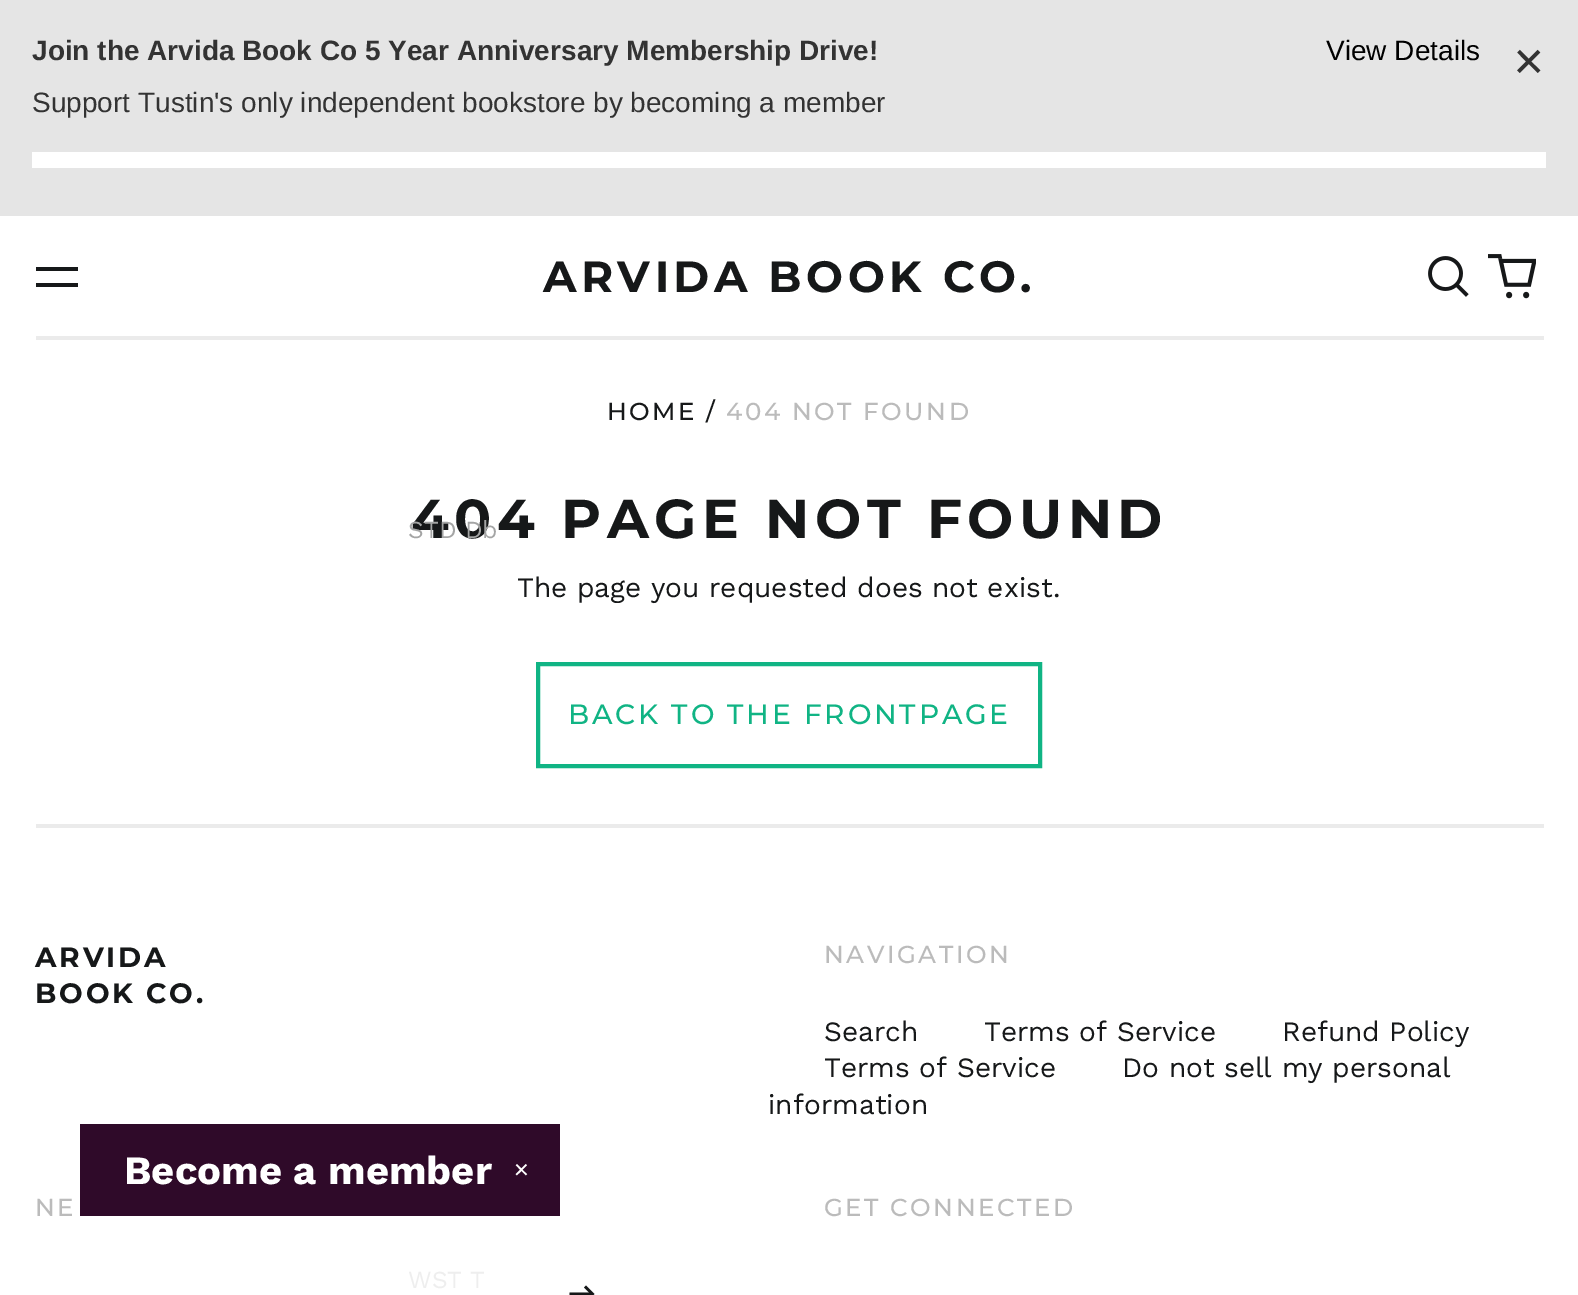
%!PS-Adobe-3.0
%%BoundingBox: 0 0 1578 1295
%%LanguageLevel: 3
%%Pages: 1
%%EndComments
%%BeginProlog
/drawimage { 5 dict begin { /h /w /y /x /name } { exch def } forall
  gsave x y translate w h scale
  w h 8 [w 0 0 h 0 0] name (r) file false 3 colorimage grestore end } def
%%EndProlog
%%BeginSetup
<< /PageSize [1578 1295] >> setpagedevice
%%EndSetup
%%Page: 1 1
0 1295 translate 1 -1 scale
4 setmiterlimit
1 setgray
0 0 1578 1295 rectfill
0.898 setgray
0 0 1578 216 rectfill
1 setgray
32 152 1514 16 rectfill
0.922 setgray
36 336 1508 4 rectfill
0.086 0.094 0.098 setrgbcolor
newpath 78 283 moveto 78 287 lineto 36 287 lineto 36 283 lineto closepath 78 267 moveto 78 271 lineto 36 271 lineto 36 267 lineto closepath eofill
(images/1.raw) 1428 256 41 41 drawimage
(images/2.raw) 1488 254 48 45 drawimage
0.063 0.706 0.518 setrgbcolor
4 setlinewidth
538 664 502 102 rectstroke
0.922 setgray
36 824 1508 4 rectfill
0.086 0.094 0.098 setrgbcolor
newpath 569.5 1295.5 moveto 589 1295.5 lineto 584 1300.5 lineto 586 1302.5 lineto 594.5 1294 lineto 586 1285.5 lineto 584 1287.5 lineto 589 1292.5 lineto 569.5 1292.5 lineto closepath eofill
0.184 0.039 0.161 setrgbcolor
80 1124 480 92 rectfill
/LiberationSans-Bold [28 0 0 -28 0 0] selectfont
0.2 setgray
32 60 moveto (Join the Arvida Book Co 5 Year Anniversary Membership Drive!) show
/LiberationSans-Regular [28 0 0 -28 0 0] selectfont
32 112 moveto (Support Tustin's only independent bookstore by becoming a member) show
0 setgray
1326 60 moveto (View Details) show
/DejaVuSans-Regular [40 0 0 -40 0 0] selectfont
0.2 setgray
1512 76 moveto (✕) show
/Montserrat-Bold [43.75 0 0 -43.75 0 0] selectfont
0.086 0.094 0.098 setrgbcolor
543 292 moveto 4.4 0 (ARVIDA BOOK CO.) ashow
/Montserrat-Medium [24.5 0 0 -24.5 0 0] selectfont
607 420 moveto 2.5 0 (HOME /) ashow
0.733 setgray
726 420 moveto 2.5 0 (404 NOT FOUND) ashow
/Montserrat-Bold [54.75 0 0 -54.75 0 0] selectfont
0.086 0.094 0.098 setrgbcolor
411 538 moveto 5.5 0 (404 PAGE NOT FOUND) ashow
/WorkSans-Regular [28 0 0 -28 0 0] selectfont
517 597 moveto (The page you requested does not exist.) show
/Montserrat-Medium [28 0 0 -28 0 0] selectfont
0.063 0.706 0.518 setrgbcolor
568 724 moveto 2.8 0 (BACK TO THE FRONTPAGE) ashow
/WorkSans-Regular [24.5 0 0 -24.5 0 0] selectfont
0.643 0.647 0.647 setrgbcolor
408 538 moveto (STD Db) show
0.933 setgray
408 1288 moveto (WST T) show
/Montserrat-Bold [28 0 0 -28 0 0] selectfont
0.086 0.094 0.098 setrgbcolor
35 967 moveto 2.8 0 (ARVIDA) ashow
35 1003 moveto 2.8 0 (BOOK CO.) ashow
/Montserrat-Medium [24.5 0 0 -24.5 0 0] selectfont
0.733 setgray
824 963 moveto 2.5 0 (NAVIGATION) ashow
/WorkSans-Regular [28 0 0 -28 0 0] selectfont
0.086 0.094 0.098 setrgbcolor
824 1041 moveto (Search) show
984 1041 moveto (Terms of Service) show
1282 1041 moveto (Refund Policy) show
824 1077 moveto (Terms of Service) show
1122 1077 moveto (Do not sell my personal) show
768 1114 moveto (information) show
/Montserrat-Medium [24.5 0 0 -24.5 0 0] selectfont
0.733 setgray
35 1216 moveto 2.5 0 (NE) ashow
824 1216 moveto 2.5 0 (GET CONNECTED) ashow
/WorkSans-Bold [40 0 0 -40 0 0] selectfont
1 setgray
124 1184 moveto (Become a member) show
/DejaVuSans-Regular [20 0 0 -20 0 0] selectfont
513 1177 moveto (✕) show
showpage
%%EOF
